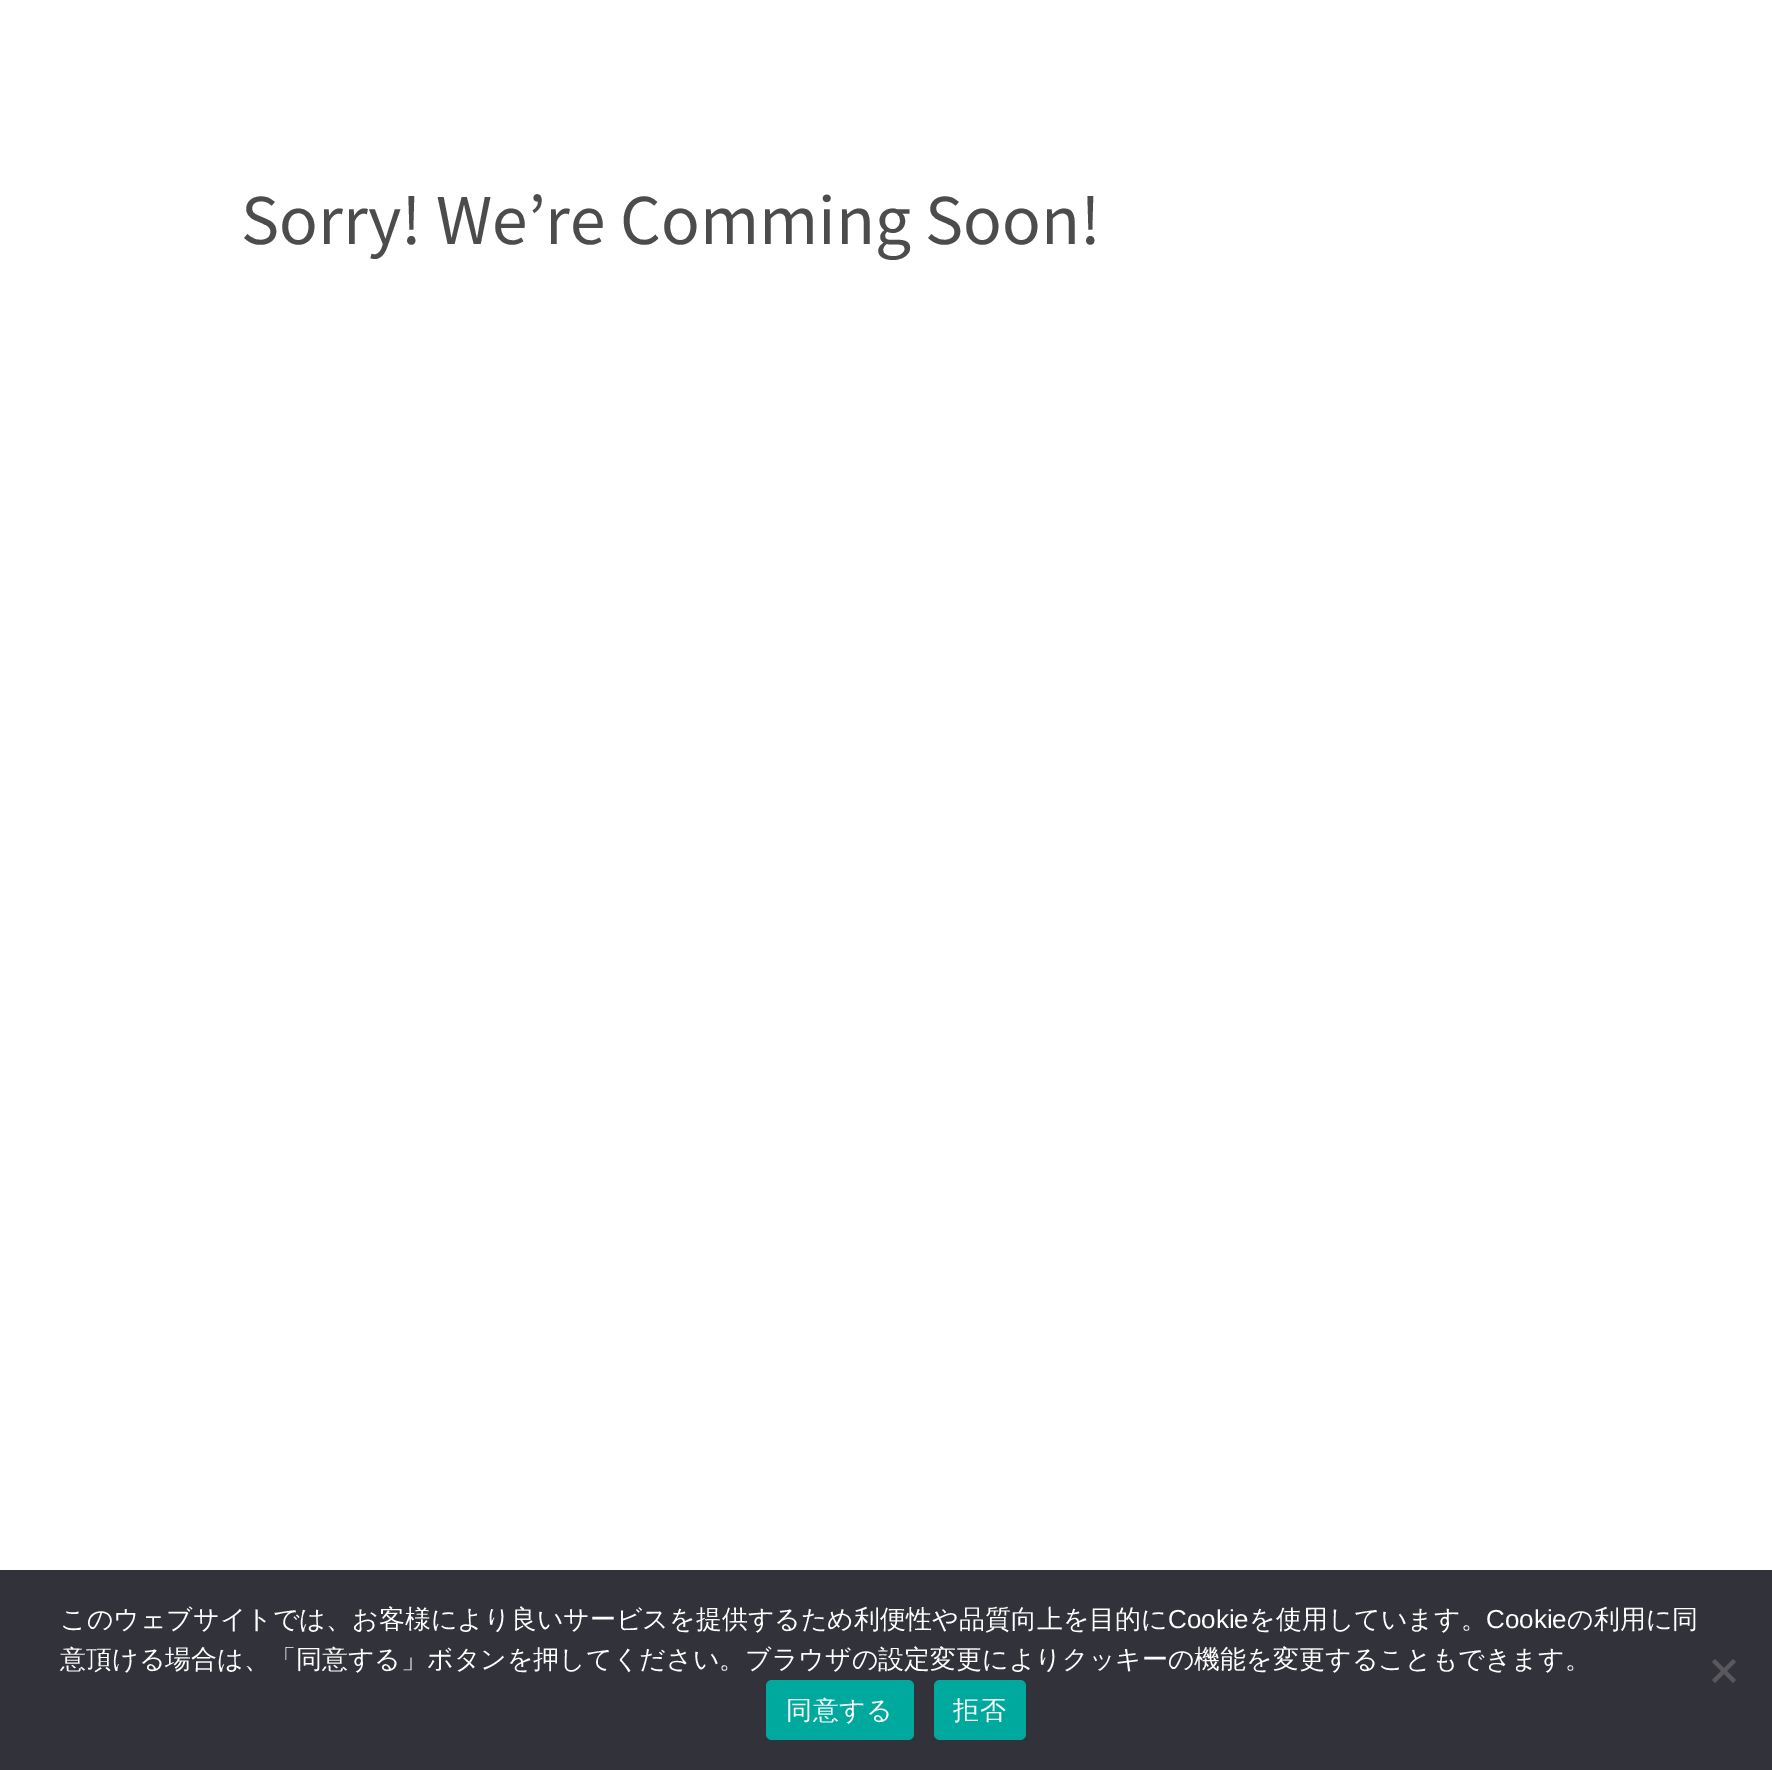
%!PS-Adobe-3.0
%%BoundingBox: 0 0 1772 1770
%%LanguageLevel: 3
%%Pages: 1
%%EndComments
%%BeginProlog
/rrect { 5 dict begin { /r /h /w /y /x } { exch def } forall
  x r add y moveto x w add y 2 copy h add r arct x w add y h add x 1 index r arct
  x y h add x y r arct x y 2 copy exch w add exch r arct closepath end } def
%%EndProlog
%%BeginSetup
<< /PageSize [1772 1770] >> setpagedevice
%%EndSetup
%%Page: 1 1
0 1770 translate 1 -1 scale
4 setmiterlimit
1 setgray
0 0 1772 1770 rectfill
0.196 0.196 0.227 setrgbcolor
0 1570 1772 200 rectfill
0.349 0.349 0.365 setrgbcolor
newpath 1733 1659 moveto 1736 1662 lineto 1715 1683 lineto 1712 1680 lineto closepath fill
newpath 1712 1662 moveto 1715 1659 lineto 1736 1680 lineto 1733 1683 lineto closepath fill
0 0.663 0.616 setrgbcolor
766 1680 148 60 6 rrect fill
934 1680 92 60 6 rrect fill
/NotoSansJP-Regular [64 0 0 -64 0 0] selectfont
0.298 setgray
241 244 moveto (Sorry! We’re Comming Soon!) show
/WenQuanYiZenHei-Medium [26 0 0 -26 0 0] selectfont
1 setgray
60 1628 moveto (このウェブサイトでは、お客様により良いサービスを提供するため利便性や品質向上を目的に) show
/LiberationSans-Regular [26 0 0 -26 0 0] selectfont
1168 1628 moveto (Cookie) show
/WenQuanYiZenHei-Medium [26 0 0 -26 0 0] selectfont
1249 1628 moveto (を使用しています。) show
/LiberationSans-Regular [26 0 0 -26 0 0] selectfont
1486 1628 moveto (Cookie) show
/WenQuanYiZenHei-Medium [26 0 0 -26 0 0] selectfont
1567 1628 moveto (の利用に同) show
60 1668 moveto (意頂ける場合は、「同意する」ボタンを押してください。ブラウザの設定変更によりクッキーの機能を変更することもできます。) show
786 1719 moveto 0.5 0 (同意する) ashow
953 1719 moveto 0.5 0 (拒否) ashow
showpage
%%EOF
